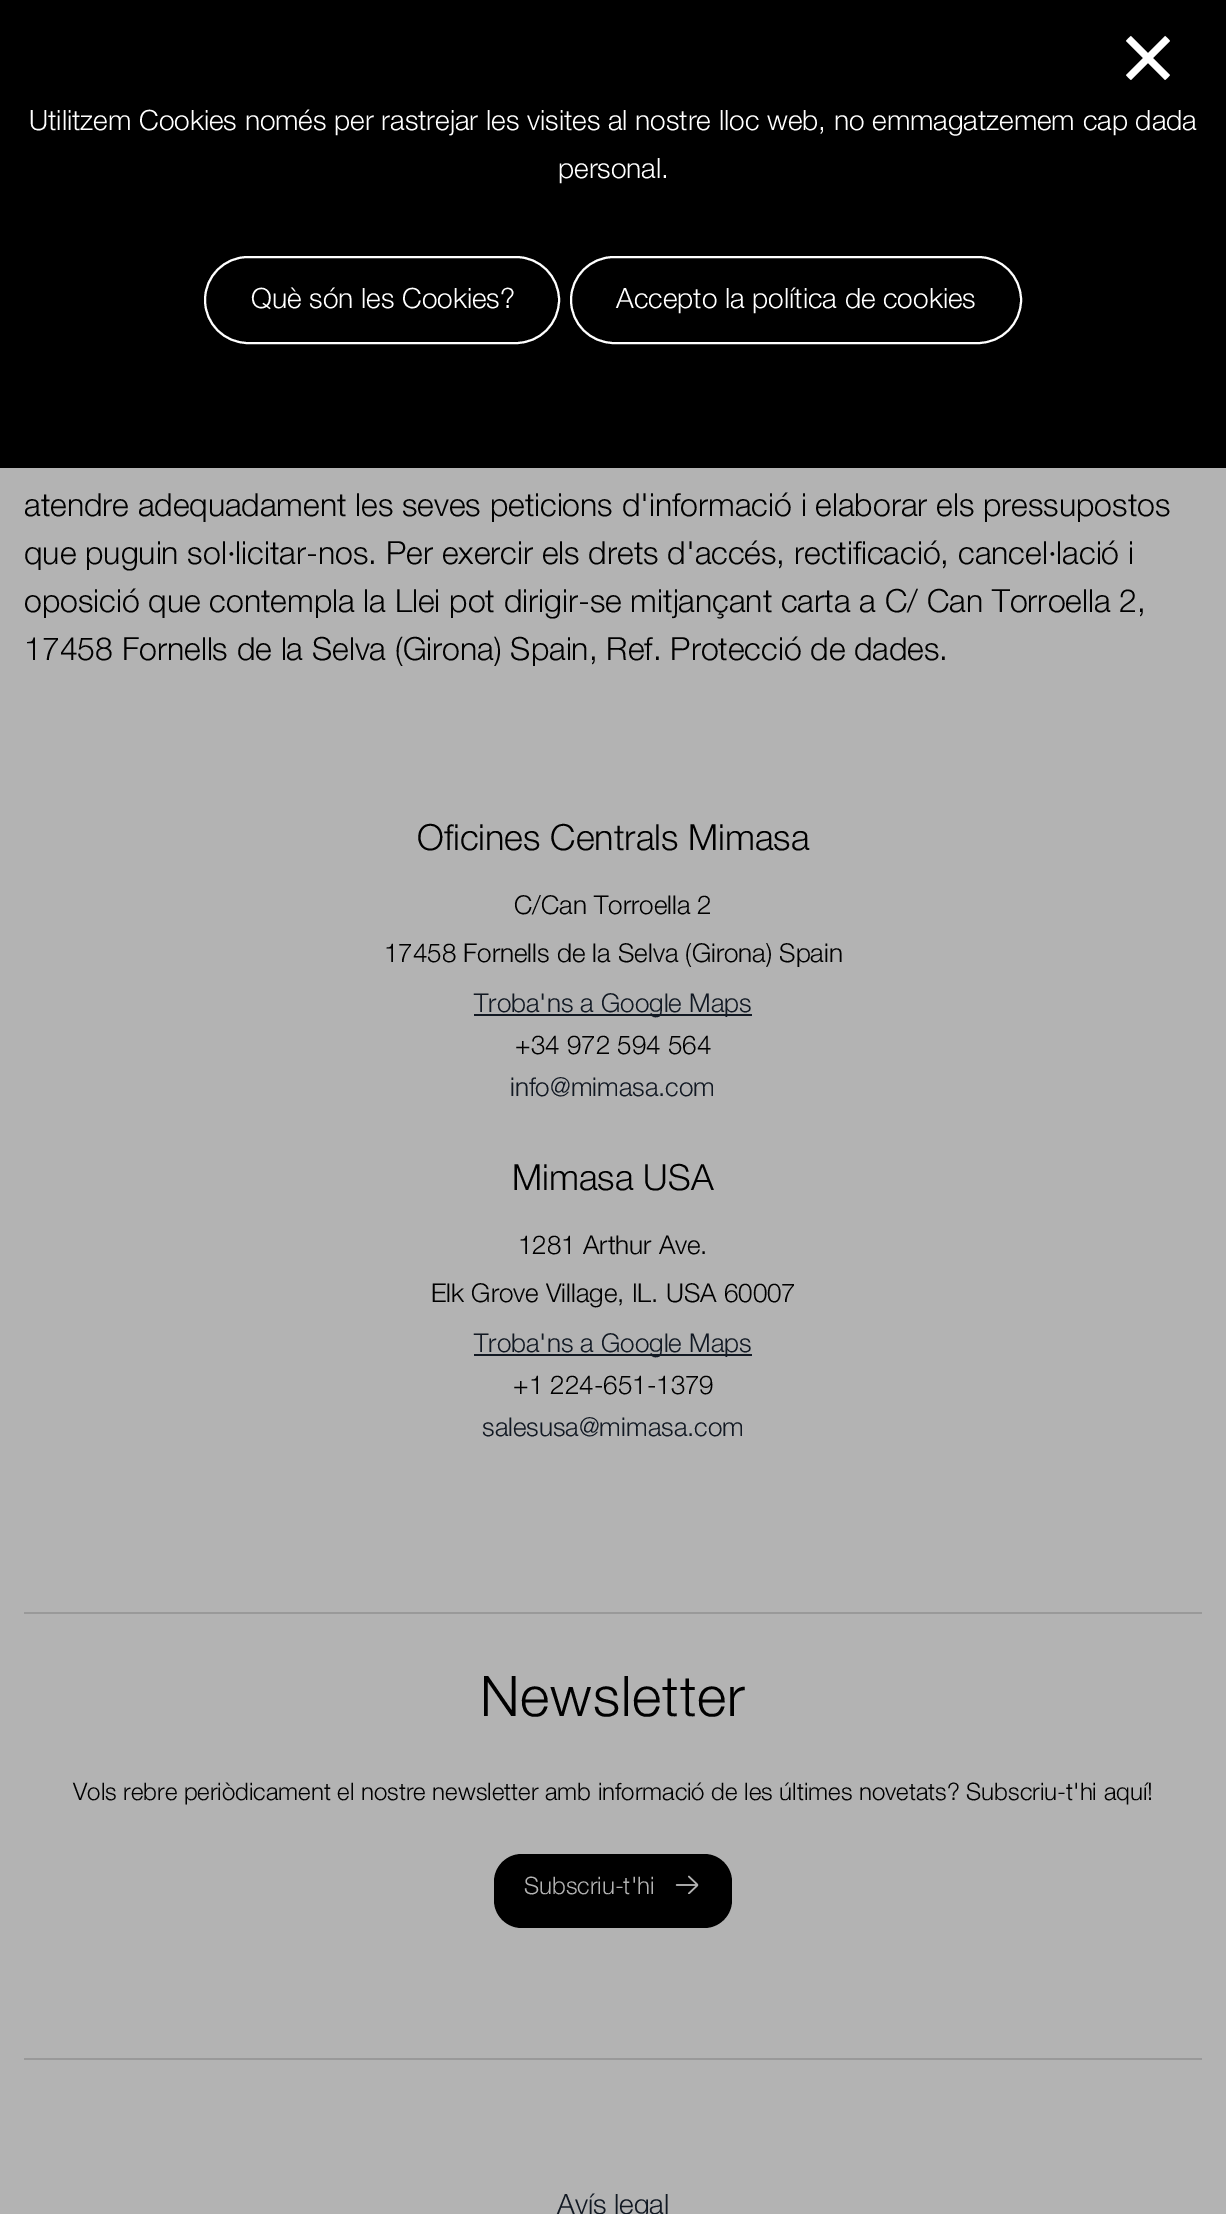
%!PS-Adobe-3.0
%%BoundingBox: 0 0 1226 2214
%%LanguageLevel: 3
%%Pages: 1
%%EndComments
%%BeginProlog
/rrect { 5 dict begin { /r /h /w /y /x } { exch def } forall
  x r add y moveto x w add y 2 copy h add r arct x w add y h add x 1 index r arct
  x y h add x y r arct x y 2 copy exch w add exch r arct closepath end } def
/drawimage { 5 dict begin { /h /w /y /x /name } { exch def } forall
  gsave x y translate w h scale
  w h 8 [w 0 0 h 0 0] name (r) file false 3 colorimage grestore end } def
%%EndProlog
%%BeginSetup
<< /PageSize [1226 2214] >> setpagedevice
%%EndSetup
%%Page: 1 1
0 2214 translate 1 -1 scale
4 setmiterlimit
0.702 setgray
0 0 1226 2214 rectfill
0 setgray
0 0 1226 468 rectfill
(images/1.raw) 1126 35 44 45 drawimage
1 setgray
2 setlinewidth
205 257 354 86 43 rrect stroke
571 257 450 86 43 rrect stroke
0.6 setgray
24 1612 1178 2 rectfill
0.071 0.098 0.137 setrgbcolor
474 1014 278 2 rectfill
474 1354 278 2 rectfill
0 setgray
494 1854 238 74 28 rrect fill
(images/2.raw) 675 1875 24 19 drawimage
0.6 setgray
24 2058 1178 2 rectfill
/HelveticaNeue-Light [28 0 0 -28 0 0] selectfont
1 setgray
29 130 moveto (Utilitzem Cookies només per rastrejar les visites al nostre lloc web, no emmagatzemem cap dada) show
558 178 moveto (personal.) show
251 308 moveto (Què són les Cookies?) show
616 308 moveto (Accepto la política de cookies) show
/HelveticaNeue-Light [32 0 0 -32 0 0] selectfont
0 setgray
24 516 moveto (atendre adequadament les seves peticions d'informació i elaborar els pressupostos) show
24 564 moveto (que puguin sol·licitar-nos. Per exercir els drets d'accés, rectificació, cancel·lació i) show
24 612 moveto (oposició que contempla la Llei pot dirigir-se mitjançant carta a C/ Can Torroella 2,) show
24 660 moveto (17458 Fornells de la Selva \(Girona\) Spain, Ref. Protecció de dades.) show
/HelveticaNeue-Light [36 0 0 -36 0 0] selectfont
417 850 moveto (Oficines Centrals Mimasa) show
/HelveticaNeue-Light [26 0 0 -26 0 0] selectfont
514 914 moveto (C/Can Torroella 2) show
384 962 moveto (17458 Fornells de la Selva \(Girona\) Spain) show
0.071 0.098 0.137 setrgbcolor
474 1012 moveto (Troba'ns a Google Maps) show
0 setgray
515 1054 moveto (+34 972 594 564) show
0.071 0.098 0.137 setrgbcolor
510 1096 moveto (info@mimasa.com) show
/HelveticaNeue-Light [36 0 0 -36 0 0] selectfont
0 setgray
512 1190 moveto (Mimasa USA) show
/HelveticaNeue-Light [26 0 0 -26 0 0] selectfont
518 1254 moveto (1281 Arthur Ave.) show
431 1302 moveto (Elk Grove Village, IL. USA 60007) show
0.071 0.098 0.137 setrgbcolor
474 1352 moveto (Troba'ns a Google Maps) show
0 setgray
513 1394 moveto (+1 224-651-1379) show
0.071 0.098 0.137 setrgbcolor
482 1436 moveto (salesusa@mimasa.com) show
/HelveticaNeue-Light [56 0 0 -56 0 0] selectfont
0 setgray
480 1716 moveto 1 0 (Newsletter) ashow
/HelveticaNeue-Light [24 0 0 -24 0 0] selectfont
73 1800 moveto (Vols rebre periòdicament el nostre newsletter amb informació de les últimes novetats? Subscriu-t'hi aquí!) show
0.702 setgray
524 1894 moveto (Subscriu-t'hi) show
/HelveticaNeue-Light [28 0 0 -28 0 0] selectfont
0.071 0.098 0.137 setrgbcolor
557 2214 moveto (Avís legal) show
showpage
%%EOF
